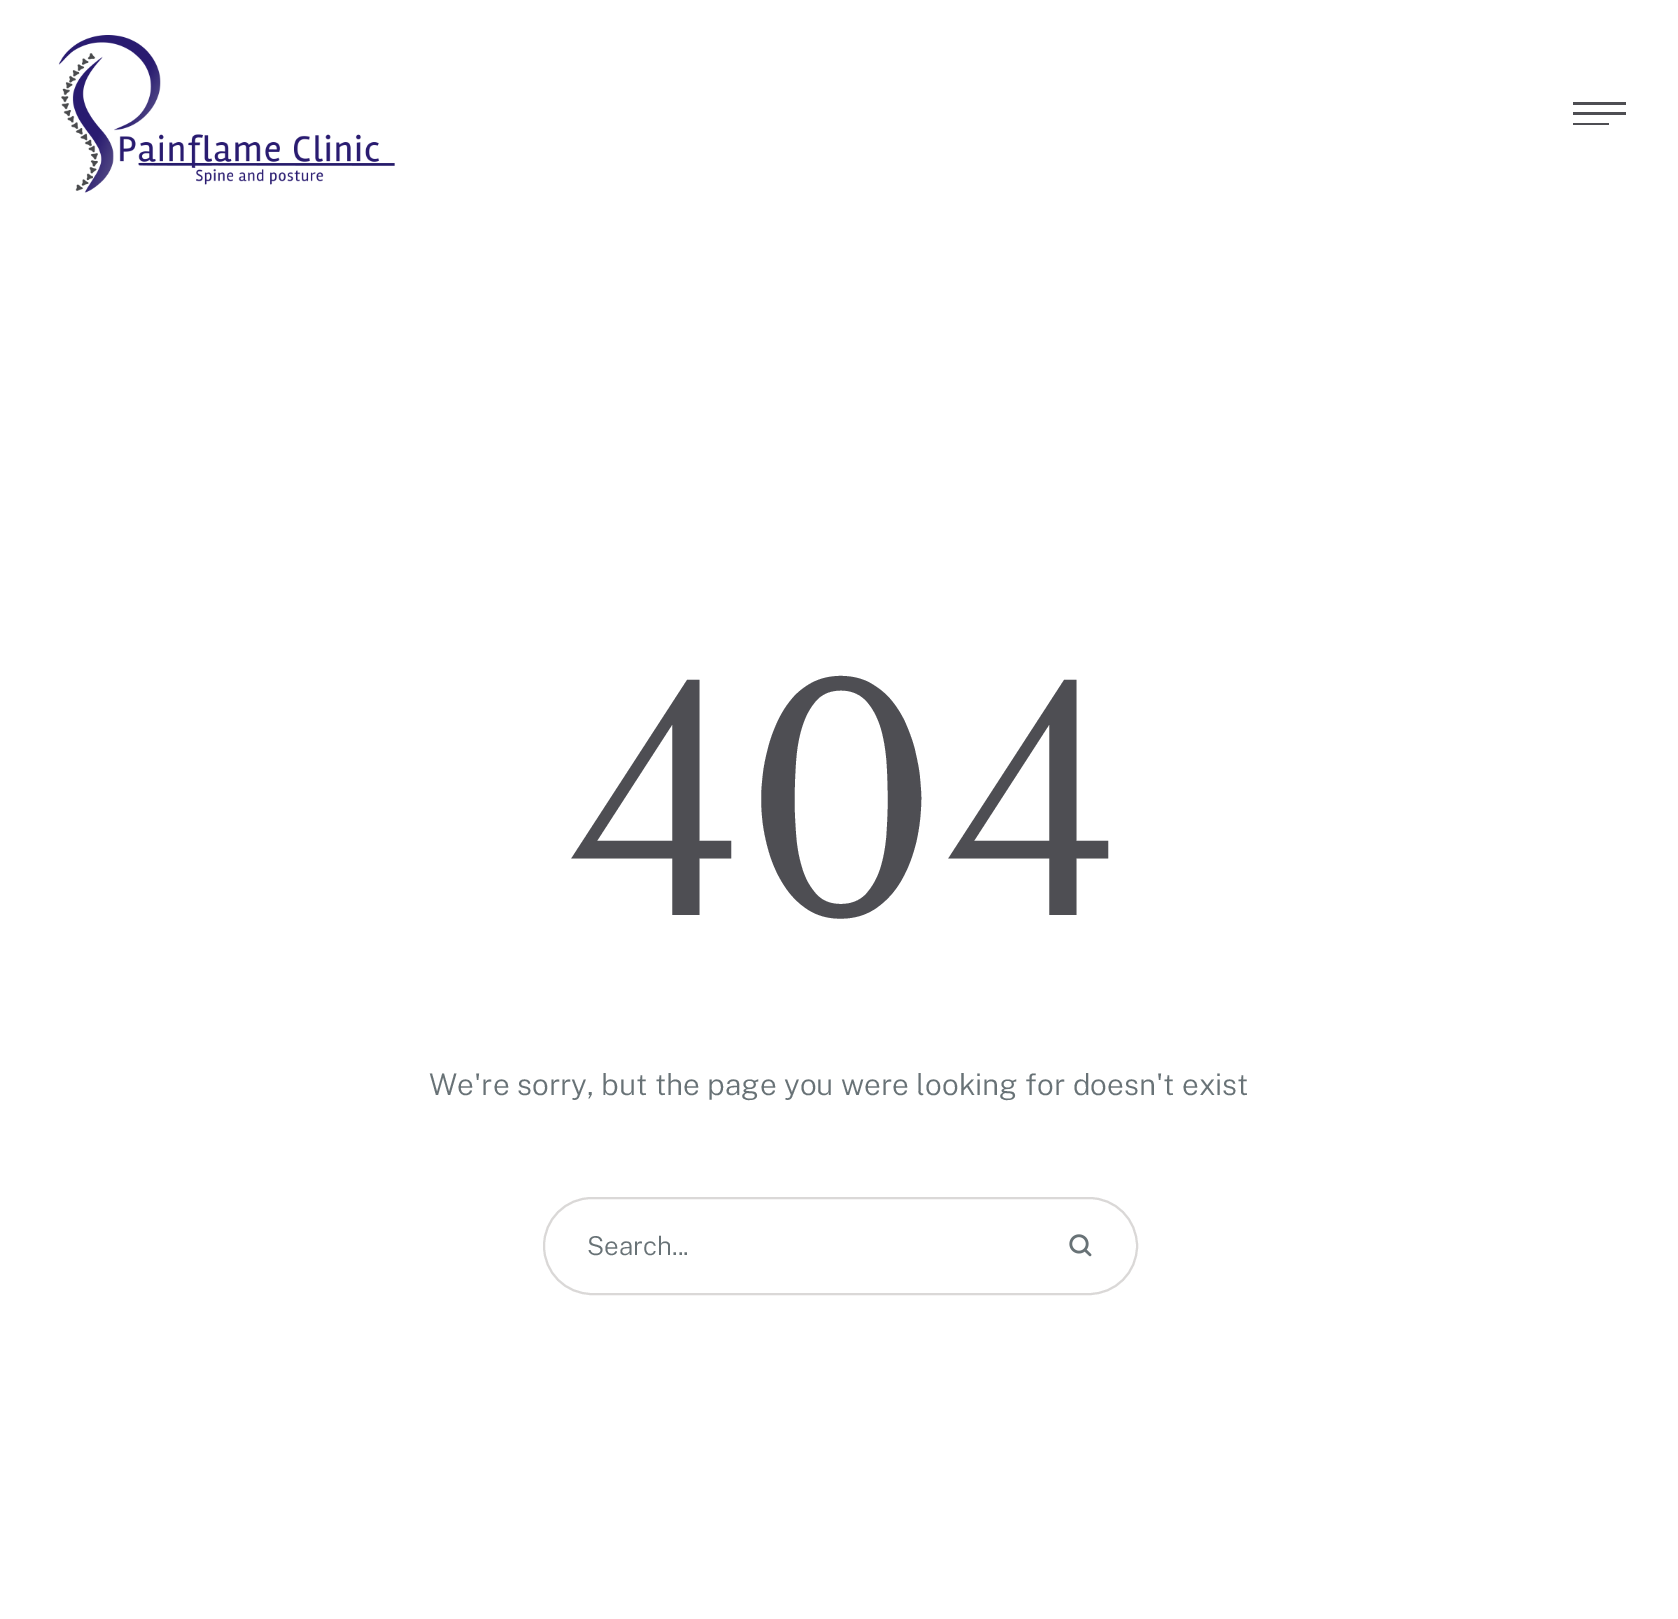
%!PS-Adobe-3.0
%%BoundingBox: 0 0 1678 1619
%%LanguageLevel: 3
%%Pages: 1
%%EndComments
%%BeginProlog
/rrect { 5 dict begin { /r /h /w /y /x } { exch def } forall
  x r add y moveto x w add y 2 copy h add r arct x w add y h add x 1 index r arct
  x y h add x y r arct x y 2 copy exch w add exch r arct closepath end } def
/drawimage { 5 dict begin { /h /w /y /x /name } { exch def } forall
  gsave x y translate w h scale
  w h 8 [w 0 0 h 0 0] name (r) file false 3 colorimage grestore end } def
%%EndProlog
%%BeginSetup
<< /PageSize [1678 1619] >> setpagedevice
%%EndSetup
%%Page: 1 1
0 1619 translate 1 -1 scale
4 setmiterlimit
1 setgray
0 0 1678 1619 rectfill
(images/1.raw) 58 35 337 158 drawimage
0.306 0.306 0.325 setrgbcolor
newpath 1626 105 moveto 1573 105 lineto 1573 102 lineto 1626 102 lineto closepath 1626 115 moveto 1573 115 lineto 1573 112 lineto 1626 112 lineto closepath 1609 125 moveto 1573 125 lineto 1573 123 lineto 1609 123 lineto closepath fill
0.855 0.847 0.843 setrgbcolor
2 setlinewidth
544 1198 593 96 48 rrect stroke
(images/2.raw) 1069 1234 23 23 drawimage
/TenorSans-Regular [336 0 0 -336 0 0] selectfont
0.306 0.306 0.325 setrgbcolor
561 915 moveto -3.5 0 (404) ashow
/PublicSans-Light [29.75 0 0 -29.75 0 0] selectfont
0.408 0.447 0.463 setrgbcolor
429 1095 moveto (We're sorry, but the page you were looking for doesn't exist) show
/PublicSans-Light [26 0 0 -26 0 0] selectfont
587 1255 moveto (Search...) show
showpage
%%EOF
